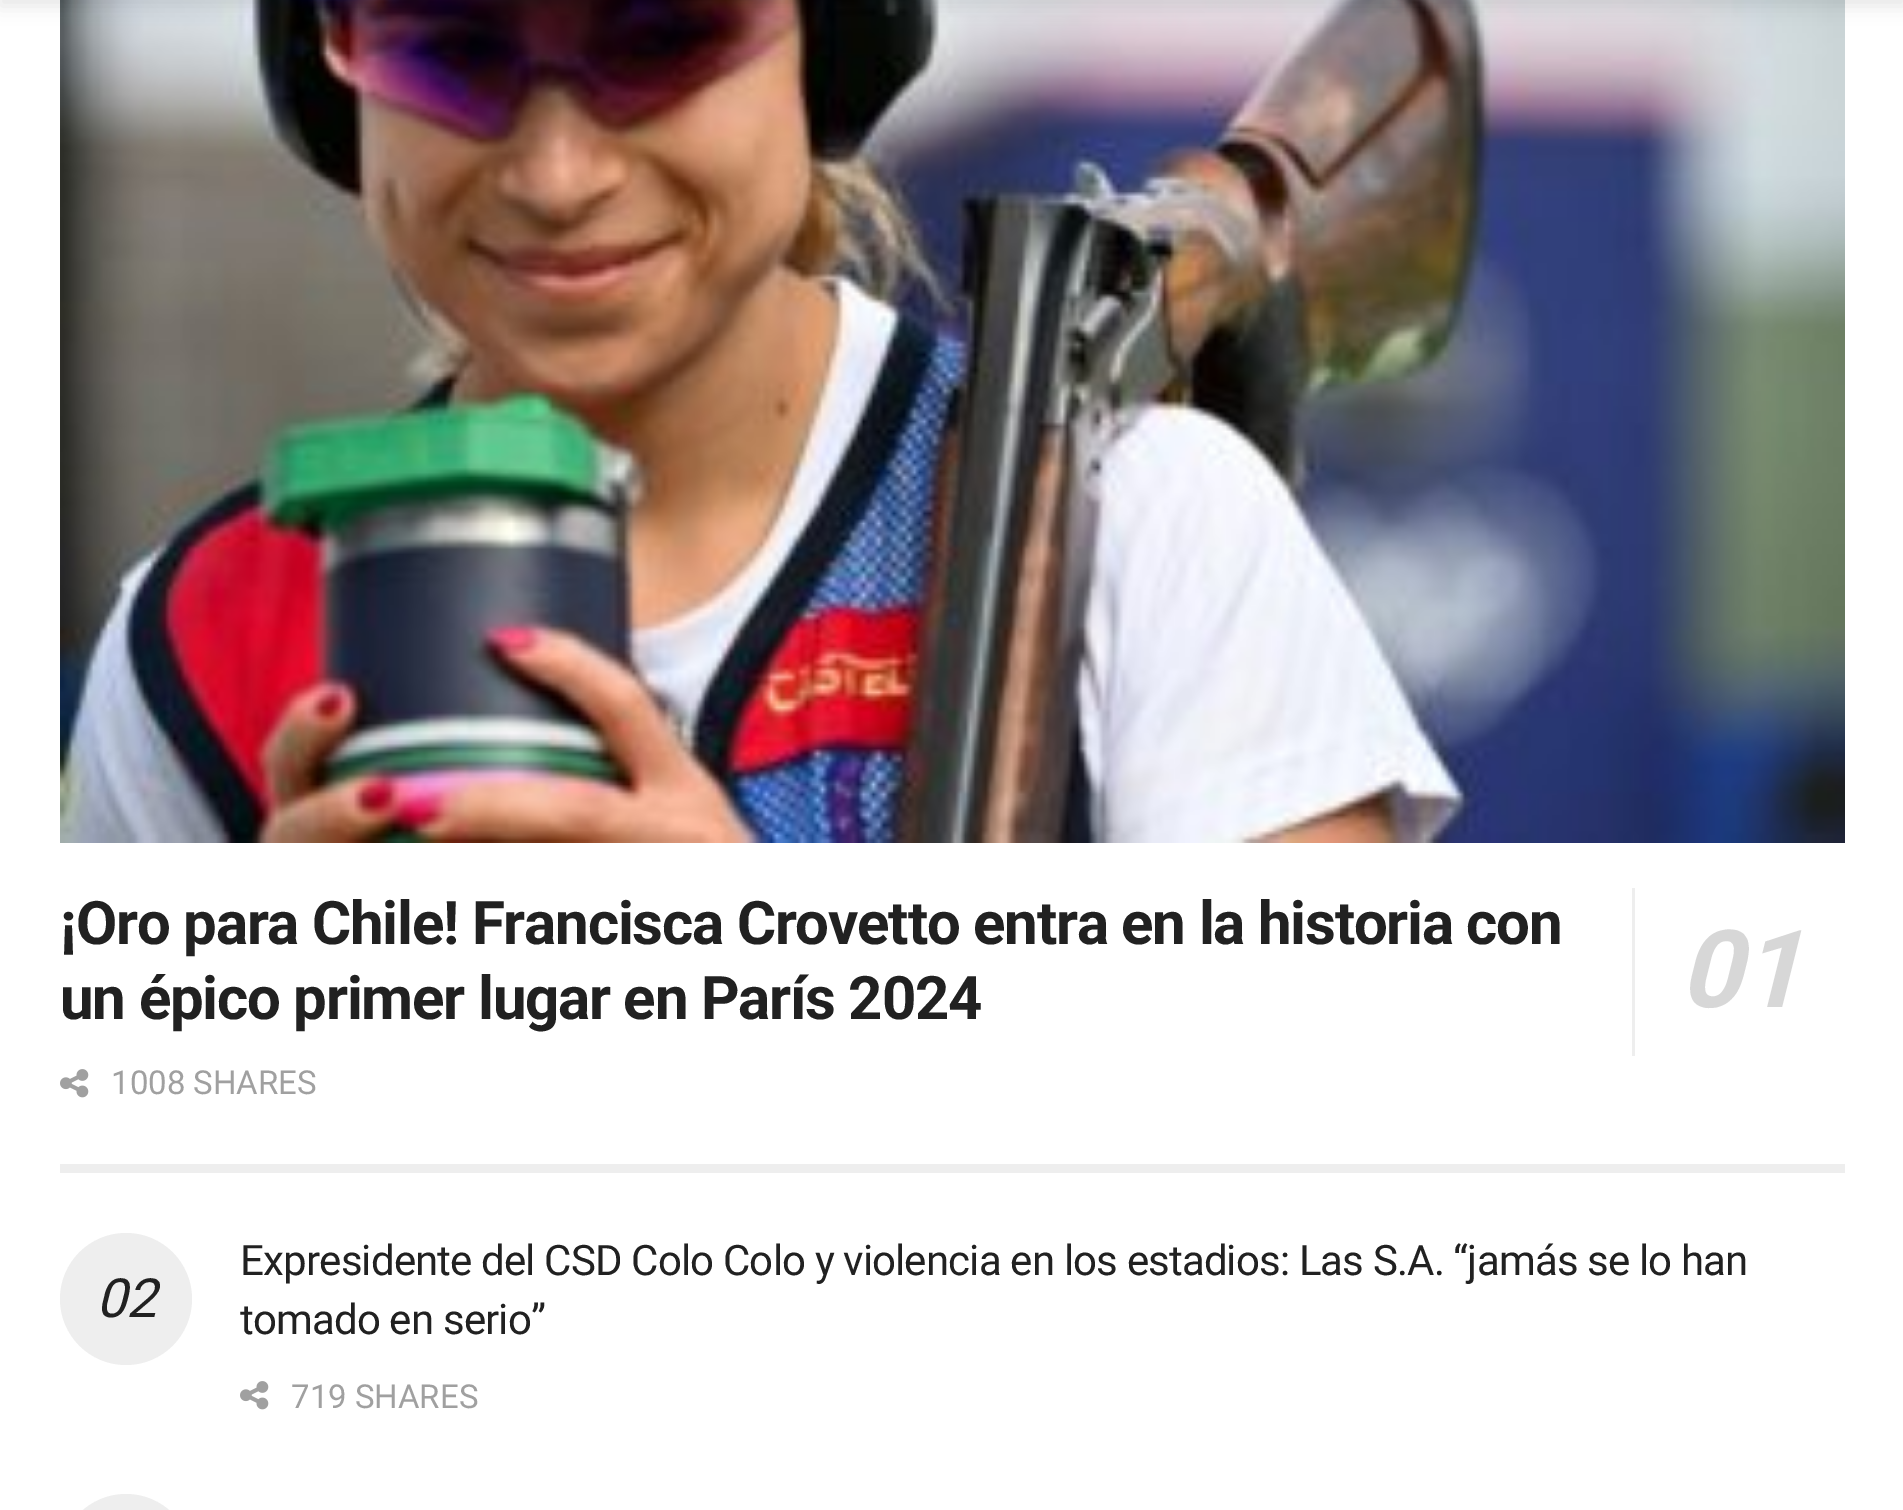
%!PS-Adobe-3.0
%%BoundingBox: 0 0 1903 1510
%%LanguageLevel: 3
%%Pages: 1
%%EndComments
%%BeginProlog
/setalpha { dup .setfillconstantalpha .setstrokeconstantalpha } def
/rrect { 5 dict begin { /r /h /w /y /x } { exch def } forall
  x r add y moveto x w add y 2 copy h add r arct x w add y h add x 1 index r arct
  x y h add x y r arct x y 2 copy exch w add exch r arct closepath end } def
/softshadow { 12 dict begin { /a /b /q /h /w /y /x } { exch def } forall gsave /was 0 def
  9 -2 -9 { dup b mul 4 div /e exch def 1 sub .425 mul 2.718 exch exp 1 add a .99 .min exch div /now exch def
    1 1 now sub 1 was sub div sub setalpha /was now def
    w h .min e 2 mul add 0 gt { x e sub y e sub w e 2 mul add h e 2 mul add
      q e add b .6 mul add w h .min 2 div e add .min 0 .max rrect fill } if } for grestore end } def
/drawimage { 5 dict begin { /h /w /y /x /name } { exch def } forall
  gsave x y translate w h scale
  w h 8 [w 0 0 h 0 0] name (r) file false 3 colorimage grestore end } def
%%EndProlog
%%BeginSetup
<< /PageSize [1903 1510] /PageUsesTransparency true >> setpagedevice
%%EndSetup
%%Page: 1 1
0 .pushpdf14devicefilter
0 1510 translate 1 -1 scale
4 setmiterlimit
1 setgray
0 0 1903 1510 rectfill
(images/1.raw) 60 0 1785 843 drawimage
0 setgray
0 -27 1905 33 0 9 0.1 softshadow
0.933 setgray
60 1164 1785 9 rectfill
1632 888 3 168 rectfill
(images/2.raw) 60 1069 29 29 drawimage
newpath 126 1299 66 0 360 arc closepath fill
(images/2.raw) 240 1381 29 29 drawimage
60 1494 132 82 66 rrect fill
/Roboto-Bold [60 0 0 -60 0 0] selectfont
0.129 setgray
60 944 moveto -1.2 0 (¡Oro para Chile! Francisca Crovetto entra en la historia con) ashow
/Roboto-BoldItalic [108 0 0 -108 0 0] selectfont
0.843 setgray
1679 1007 moveto -1.2 0 (01) ashow
/Roboto-Bold [60 0 0 -60 0 0] selectfont
0.129 setgray
60 1019 moveto -1.2 0 (un épico primer lugar en París 2024) ashow
/Roboto-Regular [33 0 0 -33 0 0] selectfont
0.627 setgray
111 1094 moveto (1008 SHARES) show
/Roboto-Regular [42 0 0 -42 0 0] selectfont
0.129 setgray
240 1275 moveto -0.85 0 (Expresidente del CSD Colo Colo y violencia en los estadios: Las S.A. “jamás se lo han) ashow
/Roboto-Italic [54 0 0 -54 0 0] selectfont
96 1317 moveto -0.85 0 (02) ashow
/Roboto-Regular [42 0 0 -42 0 0] selectfont
240 1334 moveto -0.85 0 (tomado en serio”) ashow
/Roboto-Regular [33 0 0 -33 0 0] selectfont
0.627 setgray
291 1408 moveto (719 SHARES) show
.poppdf14devicefilter showpage
%%EOF
